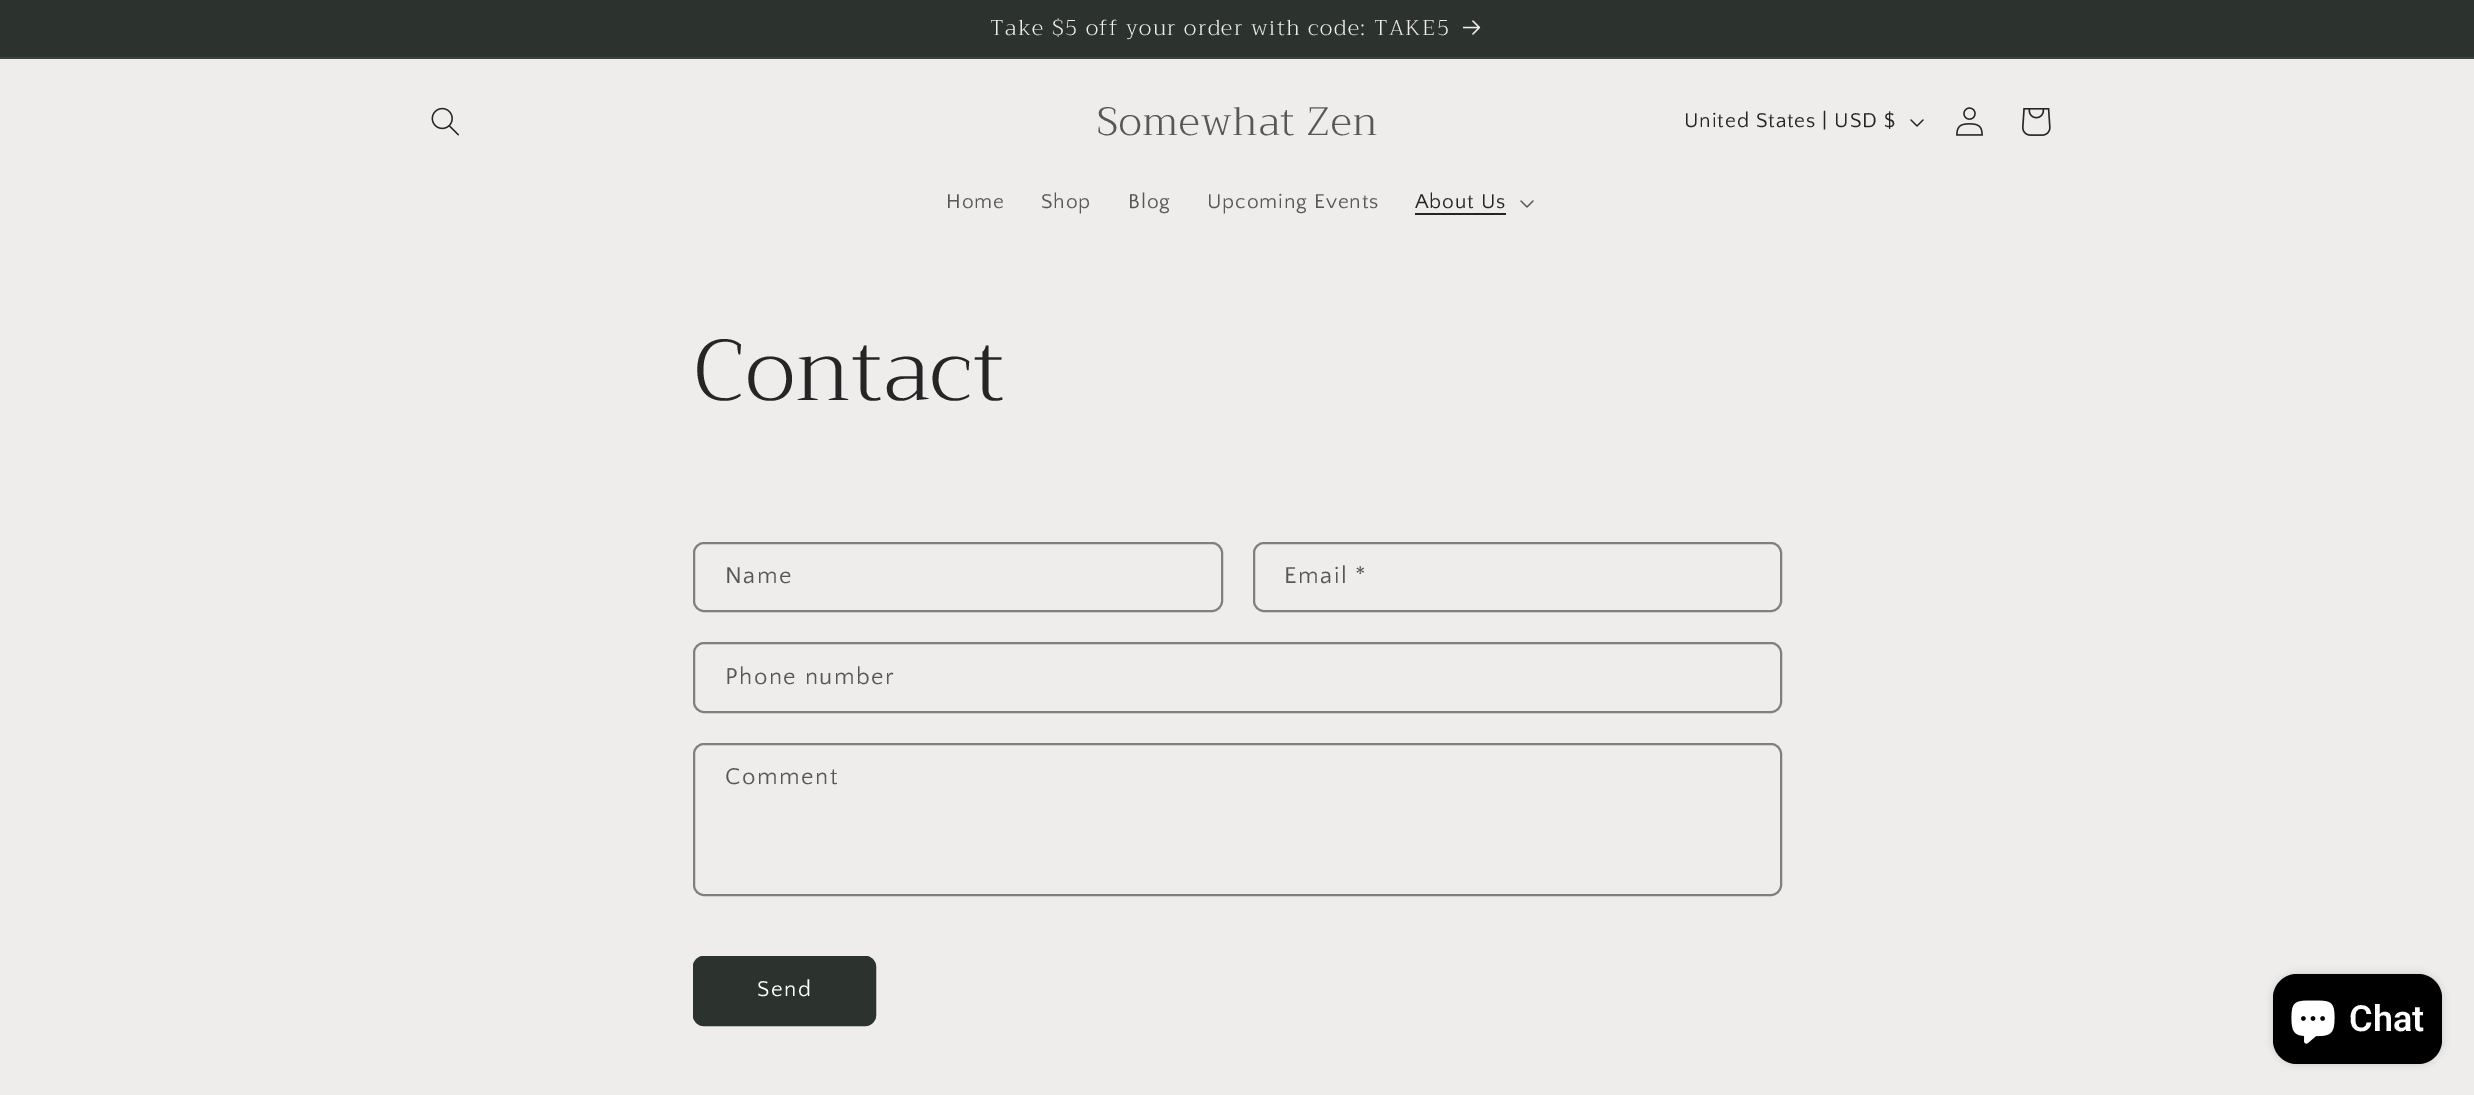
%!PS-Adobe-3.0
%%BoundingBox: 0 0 2474 1095
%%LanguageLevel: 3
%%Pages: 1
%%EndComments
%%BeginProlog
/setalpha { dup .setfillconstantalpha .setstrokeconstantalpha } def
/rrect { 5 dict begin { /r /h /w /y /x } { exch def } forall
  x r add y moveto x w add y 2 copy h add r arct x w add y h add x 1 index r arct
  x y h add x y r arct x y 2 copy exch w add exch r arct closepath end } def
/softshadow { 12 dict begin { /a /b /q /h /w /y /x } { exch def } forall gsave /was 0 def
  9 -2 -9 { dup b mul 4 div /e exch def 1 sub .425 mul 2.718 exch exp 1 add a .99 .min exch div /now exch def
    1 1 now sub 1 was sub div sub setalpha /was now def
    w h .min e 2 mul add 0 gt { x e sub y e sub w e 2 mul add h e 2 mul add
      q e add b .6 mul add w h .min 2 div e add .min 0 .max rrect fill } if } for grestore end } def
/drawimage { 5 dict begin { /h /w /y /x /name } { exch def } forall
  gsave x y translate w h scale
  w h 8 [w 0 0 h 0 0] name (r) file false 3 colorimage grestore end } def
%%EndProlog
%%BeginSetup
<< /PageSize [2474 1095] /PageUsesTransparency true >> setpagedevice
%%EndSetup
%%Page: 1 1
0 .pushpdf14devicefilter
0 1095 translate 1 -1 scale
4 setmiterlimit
0.937 0.925 0.925 setrgbcolor
0 0 2474 1095 rectfill
0.173 0.2 0.184 setrgbcolor
0 0 2474 57 rectfill
0.235 0.259 0.243 setrgbcolor
0 57 2474 2 rectfill
(images/1.raw) 1463 20 18 15 drawimage
(images/2.raw) 431 107 28 29 drawimage
(images/3.raw) 1910 119 14 8 drawimage
(images/4.raw) 1956 107 27 29 drawimage
(images/5.raw) 2022 108 29 28 drawimage
0.145 setgray
1415 213 91 2 rectfill
(images/6.raw) 1520 200 14 8 drawimage
0.502 0.498 0.498 setrgbcolor
2 setlinewidth
694 543 528 68 10 rrect stroke
1254 543 527 68 10 rrect stroke
694 643 1087 69 10 rrect stroke
694 744 1087 151 10 rrect stroke
0.173 0.2 0.184 setrgbcolor
693 956 183 70 11 rrect fill
694 957 181 68 10 rrect stroke
0 setgray
2273 974 169 90 24 4 0.15 softshadow
2273 974 169 90 24 rrect fill
(images/7.raw) 2291 1000 44 44 drawimage
/Trirong-Light [21.45 0 0 -21.45 0 0] selectfont
0.937 0.925 0.925 setrgbcolor
990 35 moveto 1.5 0 (Take $5 off your order with code: TAKE5) ashow
/Trirong-Light [39.5 0 0 -39.5 0 0] selectfont
0.345 0.341 0.341 setrgbcolor
1097 135 moveto 1 0 (Somewhat Zen) ashow
/QuattrocentoSans-Regular [21 0 0 -21 0 0] selectfont
0.145 setgray
1684 127 moveto 0.9 0 (United States | USD $) ashow
0.345 0.341 0.341 setrgbcolor
946 208 moveto 0.9 0 (Home) ashow
1041 208 moveto 0.9 0 (Shop) ashow
1128 208 moveto 0.9 0 (Blog) ashow
1207 208 moveto 0.9 0 (Upcoming Events) ashow
0.145 setgray
1415 208 moveto 0.9 0 (About Us) ashow
/Trirong-Light [86 0 0 -86 0 0] selectfont
693 400 moveto 1 0 (Contact) ashow
/QuattrocentoSans-Regular [24 0 0 -24 0 0] selectfont
0.345 0.341 0.341 setrgbcolor
725 583 moveto 1.5 0 (Name) ashow
1284 583 moveto 1.5 0 (Email *) ashow
725 684 moveto 1.5 0 (Phone number) ashow
725 784 moveto 1.5 0 (Comment) ashow
/QuattrocentoSans-Regular [22.5 0 0 -22.5 0 0] selectfont
1 setgray
757 996 moveto 1.5 0 (Send) ashow
/Roboto-SemiBold [36 0 0 -36 0 0] selectfont
2349 1031 moveto (Chat) show
.poppdf14devicefilter showpage
%%EOF
